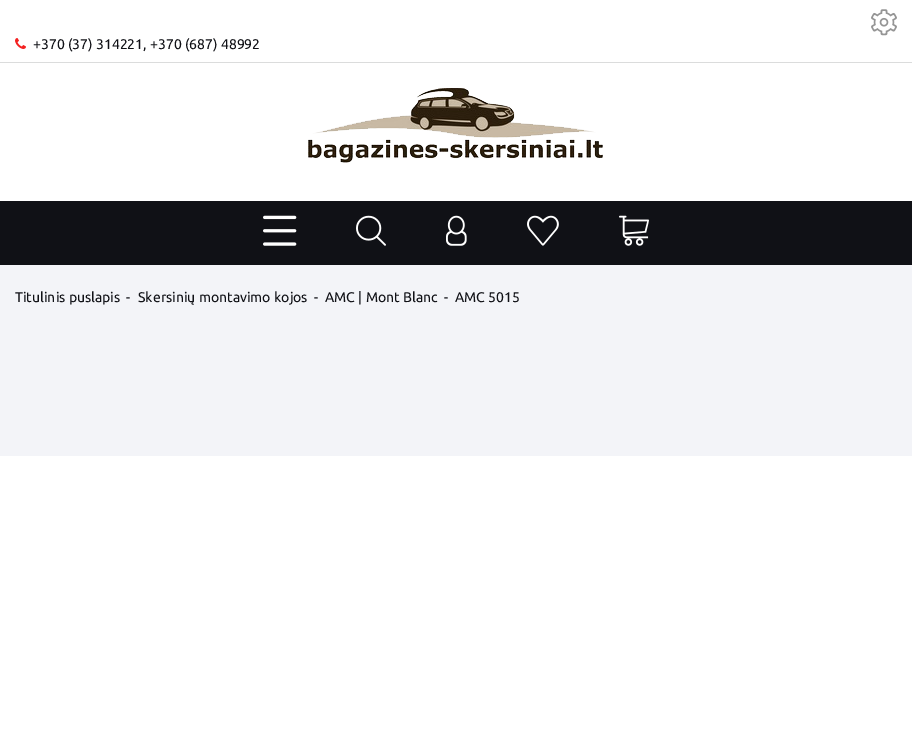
%!PS-Adobe-3.0
%%BoundingBox: 0 0 912 731
%%LanguageLevel: 3
%%Pages: 1
%%EndComments
%%BeginProlog
/drawimage { 5 dict begin { /h /w /y /x /name } { exch def } forall
  gsave x y translate w h scale
  w h 8 [w 0 0 h 0 0] name (r) file false 3 colorimage grestore end } def
%%EndProlog
%%BeginSetup
<< /PageSize [912 731] >> setpagedevice
%%EndSetup
%%Page: 1 1
0 731 translate 1 -1 scale
4 setmiterlimit
1 setgray
0 0 912 731 rectfill
0.859 0.863 0.863 setrgbcolor
0 62 912 1 rectfill
(images/1.raw) 871 9 26 27 drawimage
(images/2.raw) 15 38 11 11 drawimage
(images/3.raw) 308 88 295 75 drawimage
0.063 0.067 0.086 setrgbcolor
0 201 912 64 rectfill
(images/4.raw) 263 215 34 31 drawimage
(images/5.raw) 356 215 30 31 drawimage
(images/6.raw) 446 215 21 31 drawimage
(images/7.raw) 527 215 32 31 drawimage
(images/8.raw) 619 215 30 31 drawimage
0.953 0.957 0.973 setrgbcolor
0 265 912 191 rectfill
/Ubuntu-Regular [14 0 0 -14 0 0] selectfont
0.063 0.067 0.086 setrgbcolor
33 49 moveto (+370 \(37\) 314221, +370 \(687\) 48992) show
15 302 moveto (Titulinis puslapis) show
126 302 moveto (-) show
138 302 moveto (Skersinių montavimo kojos) show
314 302 moveto (-) show
325 302 moveto (AMC | Mont Blanc) show
444 302 moveto (-) show
455 302 moveto (AMC 5015) show
showpage
%%EOF
